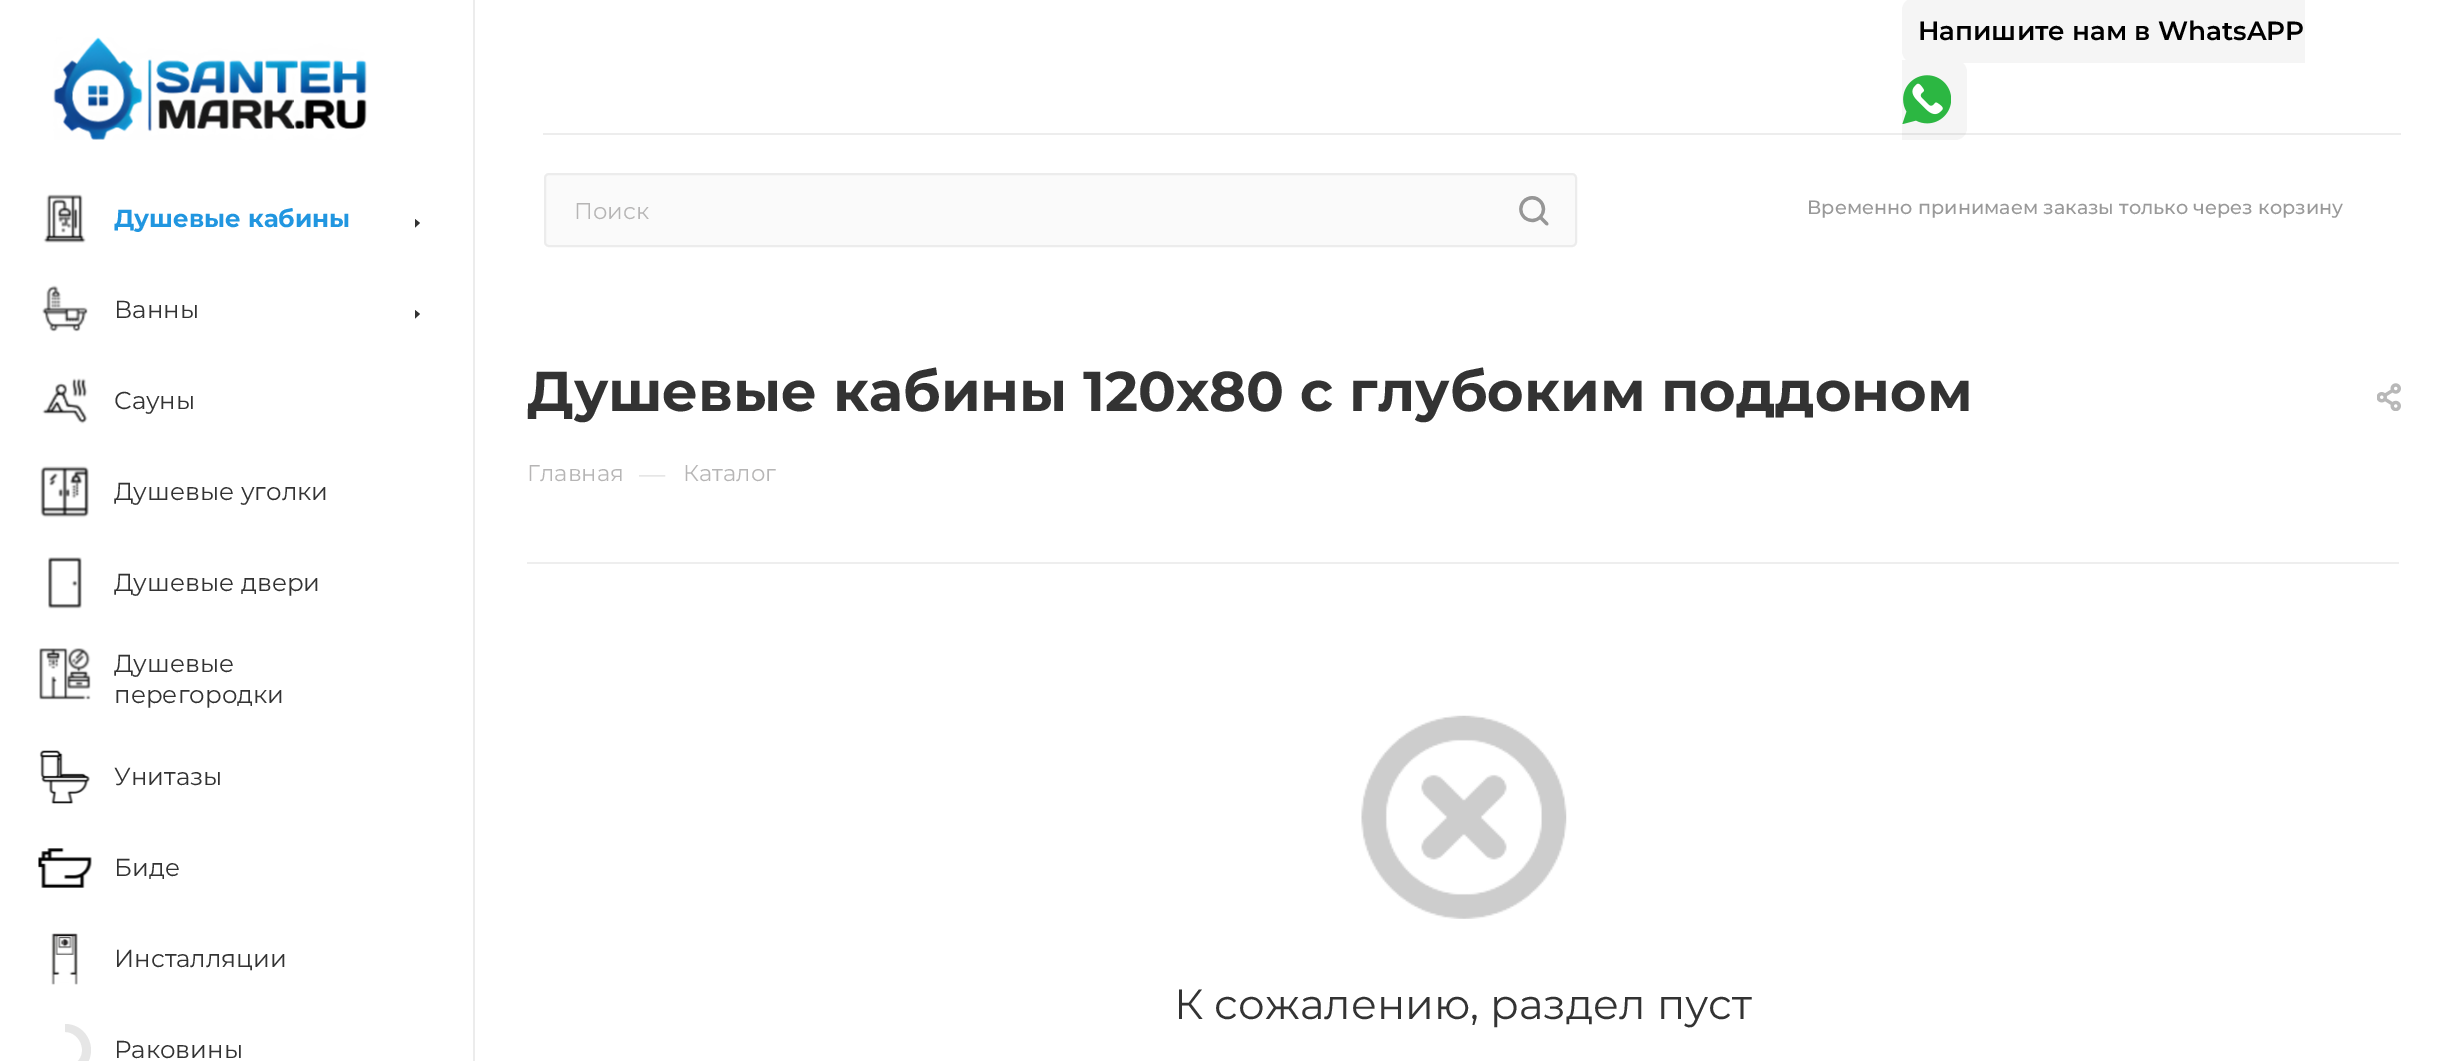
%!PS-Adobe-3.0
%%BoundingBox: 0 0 2451 1061
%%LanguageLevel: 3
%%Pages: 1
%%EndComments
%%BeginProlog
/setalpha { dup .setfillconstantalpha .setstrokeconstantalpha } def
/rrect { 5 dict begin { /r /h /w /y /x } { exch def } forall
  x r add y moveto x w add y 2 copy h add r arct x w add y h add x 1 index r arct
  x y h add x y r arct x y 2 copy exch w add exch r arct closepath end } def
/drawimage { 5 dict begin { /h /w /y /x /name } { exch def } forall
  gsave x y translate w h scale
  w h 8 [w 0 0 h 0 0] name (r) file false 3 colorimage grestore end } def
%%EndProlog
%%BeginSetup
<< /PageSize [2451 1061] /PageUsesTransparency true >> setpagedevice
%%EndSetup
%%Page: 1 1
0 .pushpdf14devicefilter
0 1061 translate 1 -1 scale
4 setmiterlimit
1 setgray
0 0 2451 1061 rectfill
0.961 setgray
newpath 1914 -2 moveto 2305 -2 lineto 2305 63 lineto 1914 63 lineto 1907.5 63 1902 57.5 1902 51 curveto 1902 10 lineto 1902 3.5 1907.5 -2 1914 -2 curveto closepath fill
newpath 1902 60 moveto 1955 60 lineto 1961.5 60 1967 65.5 1967 72 curveto 1967 128 lineto 1967 134.5 1961.5 140 1955 140 curveto 1902 140 lineto closepath fill
(images/1.raw) 1902 75 49 49 drawimage
0.07 setalpha
0 setgray
543 133 1858 2 rectfill
1 setalpha
0.98 setgray
545 174 1031 72 4 rrect gsave fill grestore
0.925 setgray
2 setlinewidth
stroke
(images/2.raw) 1519 196 30 30 drawimage
473 0 2 1061 rectfill
(images/3.raw) 53 37 314 103 drawimage
(images/4.raw) 43 194 43 49 drawimage
0.2 setgray
newpath 415 227.5 moveto 415 219 lineto 420 223 lineto closepath eofill
(images/5.raw) 42 285 46 47 drawimage
newpath 415 318.5 moveto 415 310 lineto 420 314 lineto closepath eofill
(images/6.raw) 42 378 46 46 drawimage
(images/7.raw) 40 466 49 52 drawimage
(images/8.raw) 48 557 34 52 drawimage
(images/9.raw) 39 648 52 52 drawimage
(images/10.raw) 39 750 51 54 drawimage
(images/11.raw) 38 848 54 40 drawimage
(images/12.raw) 51 933 27 52 drawimage
0.902 setgray
newpath 65 1024 moveto 88 1024 100 1052 83 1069 curveto 77 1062 lineto 88 1052 80 1032 65 1032 curveto closepath fill
(images/13.raw) 2377 383 24 28 drawimage
0.933 setgray
527 562 1872 2 rectfill
(images/14.raw) 1361 715 206 204 drawimage
/Montserrat-SemiBold [26.25 0 0 -26.25 0 0] selectfont
0 setgray
1918 40 moveto (Напишите нам в WhatsAPP) show
/Montserrat-Regular [22.75 0 0 -22.75 0 0] selectfont
0.714 0.71 0.71 setrgbcolor
574 219 moveto (Поиск) show
/Montserrat-Medium [19.25 0 0 -19.25 0 0] selectfont
0.6 setgray
1807 214 moveto (Временно принимаем заказы только через корзину) show
/Montserrat-Bold [24.5 0 0 -24.5 0 0] selectfont
0.129 0.588 0.878 setrgbcolor
114 227 moveto (Душевые кабины) show
/Montserrat-Regular [24.5 0 0 -24.5 0 0] selectfont
0.2 setgray
114 318 moveto (Ванны) show
114 409 moveto (Сауны) show
114 500 moveto (Душевые уголки) show
114 591 moveto (Душевые двери) show
114 672 moveto (Душевые) show
114 703 moveto (перегородки) show
114 785 moveto (Унитазы) show
114 876 moveto (Биде) show
114 967 moveto (Инсталляции) show
114 1058 moveto (Раковины) show
/Montserrat-Bold [56 0 0 -56 0 0] selectfont
527 411 moveto (Душевые кабины 120х80 с глубоким поддоном) show
/Montserrat-Regular [22.75 0 0 -22.75 0 0] selectfont
0.714 0.71 0.71 setrgbcolor
527 481 moveto (Главная) show
/Montserrat-Regular [26.25 0 0 -26.25 0 0] selectfont
0.867 setgray
639 483 moveto (—) show
/Montserrat-Regular [22.75 0 0 -22.75 0 0] selectfont
0.714 0.71 0.71 setrgbcolor
683 481 moveto (Каталог) show
/Montserrat-Regular [42 0 0 -42 0 0] selectfont
0.2 setgray
1174 1019 moveto (К сожалению, раздел пуст) show
.poppdf14devicefilter showpage
%%EOF
